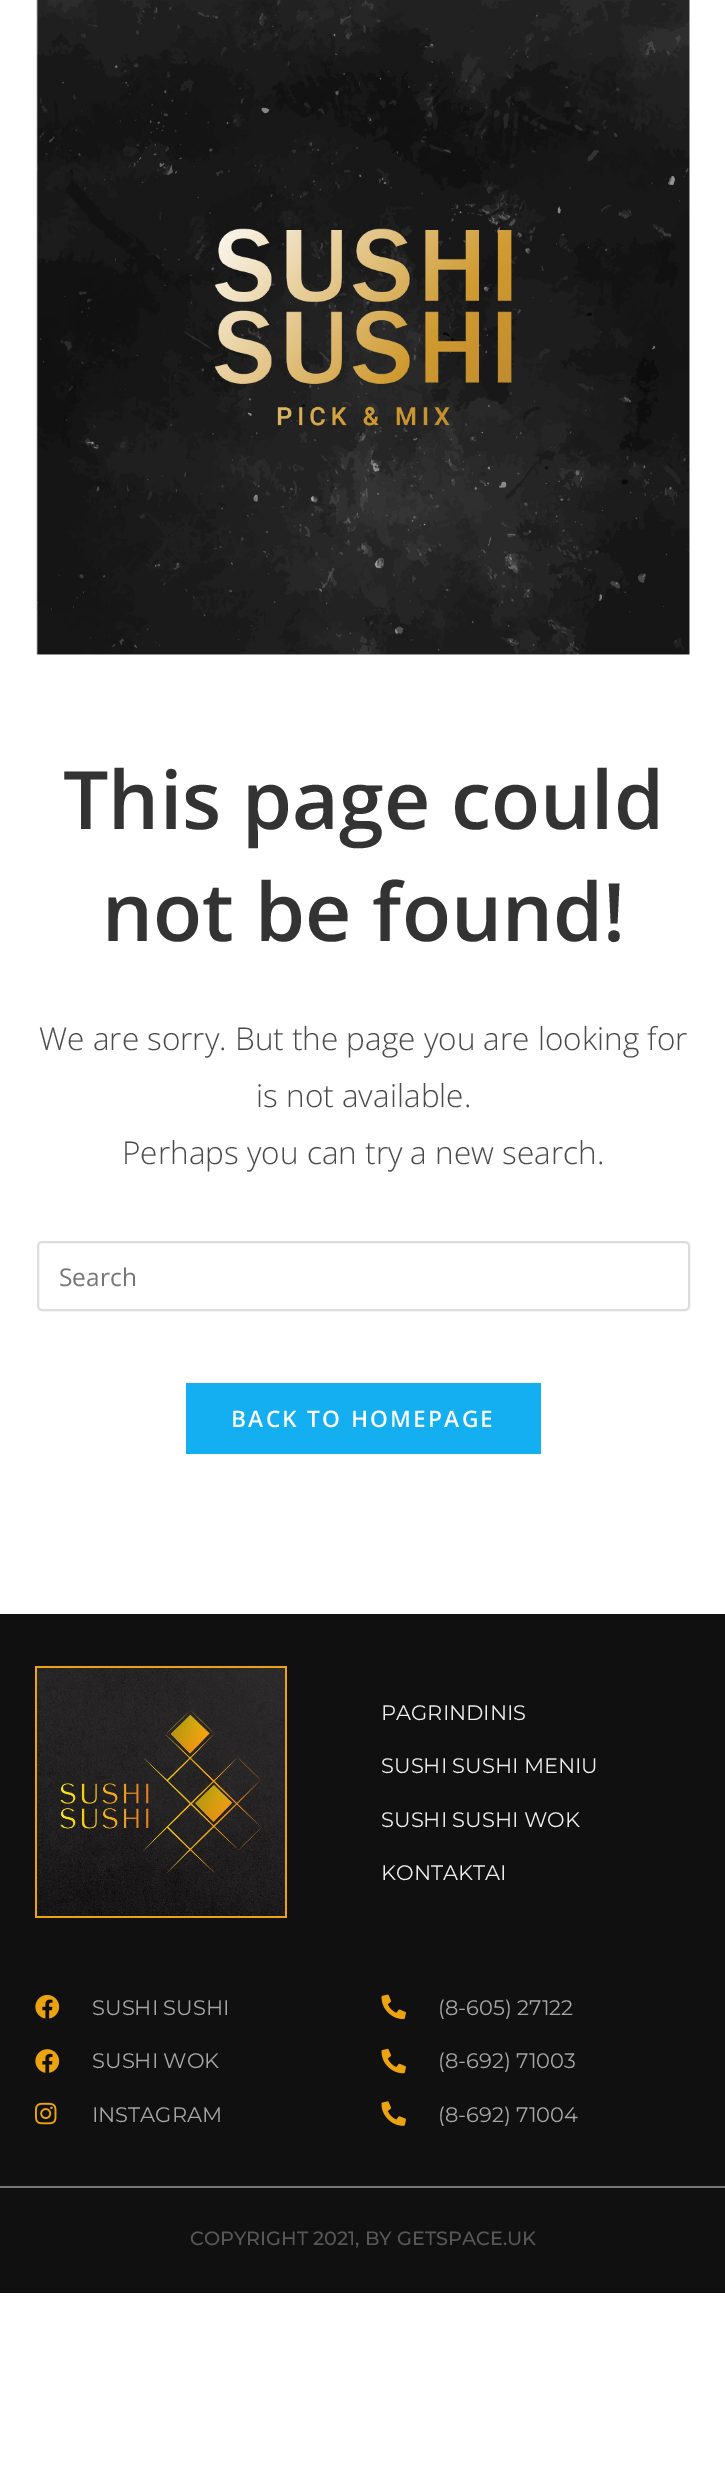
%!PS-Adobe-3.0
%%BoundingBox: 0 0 725 2486
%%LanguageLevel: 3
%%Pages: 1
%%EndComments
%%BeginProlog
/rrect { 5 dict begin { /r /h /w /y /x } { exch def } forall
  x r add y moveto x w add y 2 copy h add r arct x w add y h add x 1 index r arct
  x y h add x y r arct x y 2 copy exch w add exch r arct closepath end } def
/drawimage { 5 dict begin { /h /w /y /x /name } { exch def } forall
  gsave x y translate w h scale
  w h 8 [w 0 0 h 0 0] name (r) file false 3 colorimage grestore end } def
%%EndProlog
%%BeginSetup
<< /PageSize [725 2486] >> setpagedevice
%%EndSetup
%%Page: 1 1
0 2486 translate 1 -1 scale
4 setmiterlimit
1 setgray
0 0 725 2486 rectfill
(images/1.raw) 36 0 654 655 drawimage
0.867 setgray
2 setlinewidth
38 1242 651 68 4 rrect stroke
0.075 0.686 0.941 setrgbcolor
186 1383 355 71 rectfill
0.063 setgray
0 1614 725 572 rectfill
(images/2.raw) 35 1666 252 252 drawimage
(images/3.raw) 35 1994 25 25 drawimage
(images/4.raw) 35 2049 25 24 drawimage
(images/5.raw) 35 2102 22 23 drawimage
(images/6.raw) 381 1994 25 26 drawimage
(images/7.raw) 381 2048 25 26 drawimage
(images/8.raw) 381 2101 25 25 drawimage
0 2188 725 105 rectfill
0.471 setgray
0 2186 725 2 rectfill
/OpenSans-SemiBold [80.5 0 0 -80.5 0 0] selectfont
0.2 setgray
63 829 moveto (This page could) show
102 941 moveto (not be found!) show
/OpenSans-Light [31.5 0 0 -31.5 0 0] selectfont
0.29 setgray
39 1050 moveto (We are sorry. But the page you are looking for) show
256 1107 moveto (is not available.) show
122 1164 moveto (Perhaps you can try a new search.) show
/OpenSans-Regular [24.5 0 0 -24.5 0 0] selectfont
0.459 setgray
59 1286 moveto (Search) show
/OpenSans-SemiBold [22.75 0 0 -22.75 0 0] selectfont
1 setgray
231 1427 moveto 2.25 0 (BACK TO HOMEPAGE) ashow
/Montserrat-Regular [21 0 0 -21 0 0] selectfont
0.929 setgray
381 1720 moveto (PAGRINDINIS) show
381 1773 moveto (SUSHI SUSHI MENIU) show
381 1827 moveto (SUSHI SUSHI WOK) show
381 1880 moveto (KONTAKTAI) show
0.651 setgray
92 2015 moveto (SUSHI SUSHI) show
92 2068 moveto (SUSHI WOK) show
92 2122 moveto (INSTAGRAM) show
438 2015 moveto (\(8-605\) 27122) show
438 2068 moveto (\(8-692\) 71003) show
438 2122 moveto (\(8-692\) 71004) show
/Montserrat-Medium [19.25 0 0 -19.25 0 0] selectfont
0.341 setgray
190 2245 moveto (COPYRIGHT 2021, BY GETSPACE.UK) show
showpage
%%EOF
